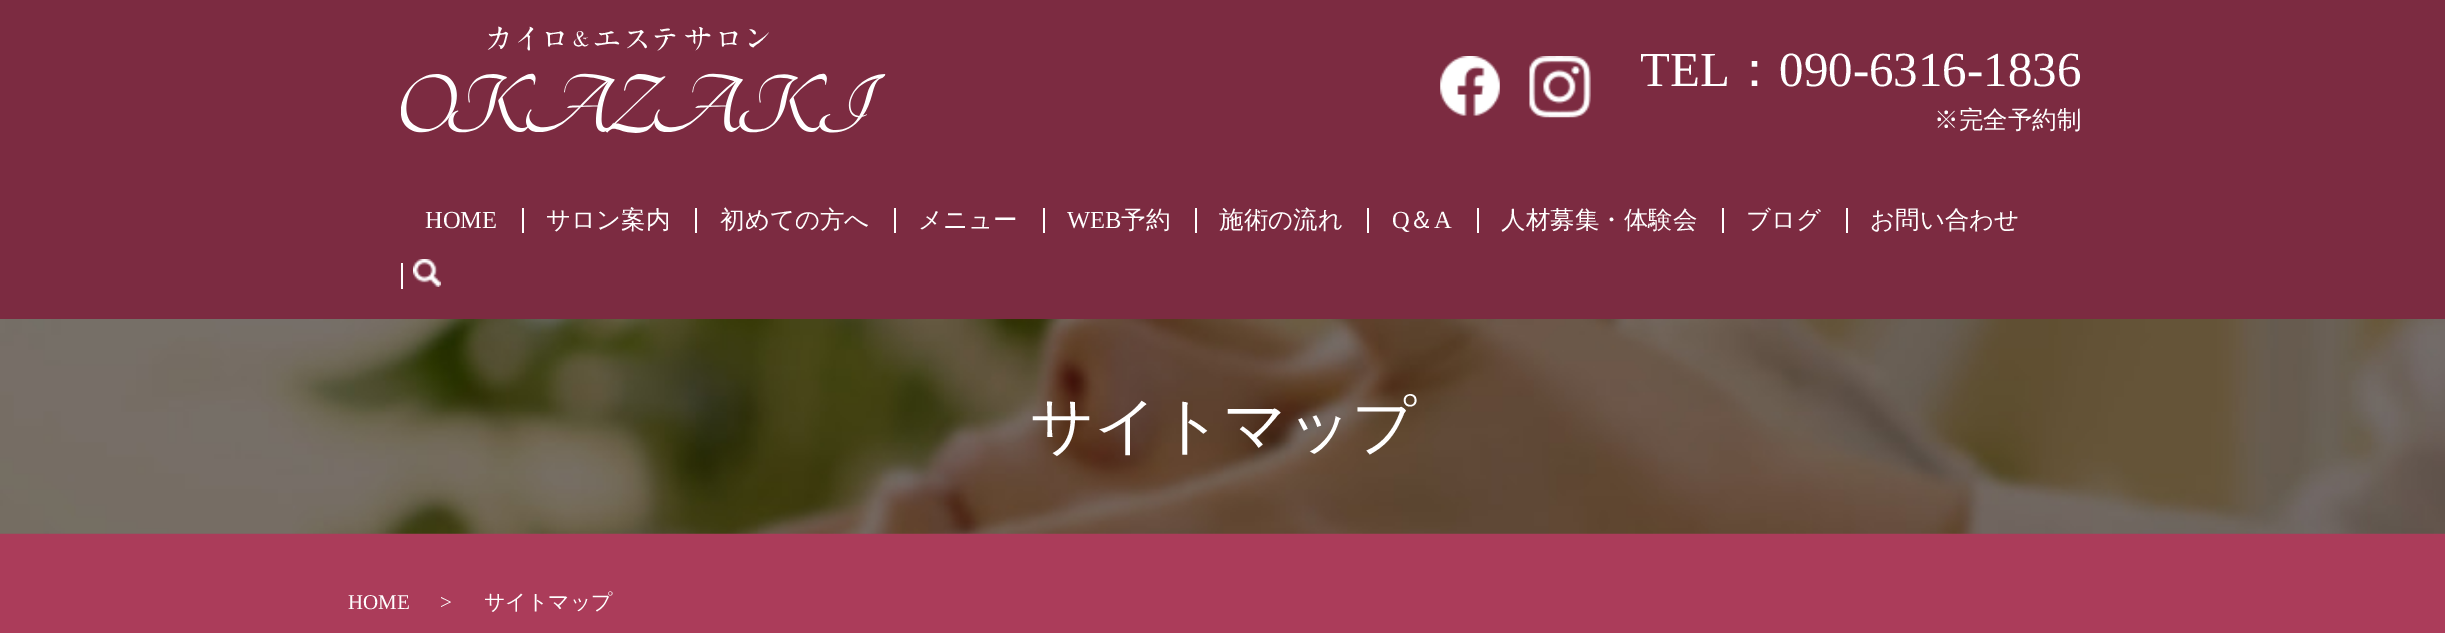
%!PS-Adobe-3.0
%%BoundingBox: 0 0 2445 633
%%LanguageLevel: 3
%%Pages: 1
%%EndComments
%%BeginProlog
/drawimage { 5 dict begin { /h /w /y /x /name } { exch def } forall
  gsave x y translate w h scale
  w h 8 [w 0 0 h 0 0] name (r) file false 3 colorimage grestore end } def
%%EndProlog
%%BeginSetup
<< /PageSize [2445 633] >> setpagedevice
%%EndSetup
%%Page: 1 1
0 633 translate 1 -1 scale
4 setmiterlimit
0.671 0.235 0.353 setrgbcolor
0 0 2445 633 rectfill
0.486 0.169 0.255 setrgbcolor
0 0 2445 319 rectfill
(images/1.raw) 401 26 485 107 drawimage
(images/2.raw) 1440 56 60 60 drawimage
(images/3.raw) 1529 56 62 62 drawimage
1 setgray
522 208 2 25 rectfill
695 208 2 25 rectfill
894 208 2 25 rectfill
1043 208 2 25 rectfill
1195 208 2 25 rectfill
1367 208 2 25 rectfill
1477 208 2 25 rectfill
1722 208 2 25 rectfill
1846 208 2 25 rectfill
(images/4.raw) 413 259 28 28 drawimage
401 263 2 26 rectfill
(images/5.raw) 0 319 2445 215 drawimage
/LiberationSerif-Regular [49 0 0 -49 0 0] selectfont
1640 86 moveto (TEL) show
/WenQuanYiZenHei-Medium [49 0 0 -49 0 0] selectfont
1730 86 moveto (：) show
/LiberationSerif-Regular [49 0 0 -49 0 0] selectfont
1779 86 moveto (090-6316-1836) show
/WenQuanYiZenHei-Medium [24.5 0 0 -24.5 0 0] selectfont
1934 128 moveto (※完全予約制) show
/LiberationSerif-Regular [24.5 0 0 -24.5 0 0] selectfont
425 228 moveto (HOME) show
/WenQuanYiZenHei-Medium [24.5 0 0 -24.5 0 0] selectfont
546 228 moveto (サロン案内) show
720 228 moveto (初めての方へ) show
918 228 moveto (メニュー) show
/LiberationSerif-Regular [24.5 0 0 -24.5 0 0] selectfont
1067 228 moveto (WEB) show
/WenQuanYiZenHei-Medium [24.5 0 0 -24.5 0 0] selectfont
1121 228 moveto (予約) show
1219 228 moveto (施術の流れ) show
/LiberationSerif-Regular [24.5 0 0 -24.5 0 0] selectfont
1392 228 moveto (Q) show
/WenQuanYiZenHei-Medium [24.5 0 0 -24.5 0 0] selectfont
1409 228 moveto (＆) show
/LiberationSerif-Regular [24.5 0 0 -24.5 0 0] selectfont
1434 228 moveto (A) show
/WenQuanYiZenHei-Medium [24.5 0 0 -24.5 0 0] selectfont
1501 228 moveto (人材募集・体験会) show
1746 228 moveto (ブログ) show
1870 228 moveto (お問い合わせ) show
/WenQuanYiZenHei-Medium [63 0 0 -63 0 0] selectfont
1030 447 moveto (サイトマップ) show
/LiberationSerif-Regular [21 0 0 -21 0 0] selectfont
348 609 moveto (HOME) show
440 609 moveto (>) show
/WenQuanYiZenHei-Medium [21 0 0 -21 0 0] selectfont
484 609 moveto (サイトマップ) show
showpage
%%EOF
